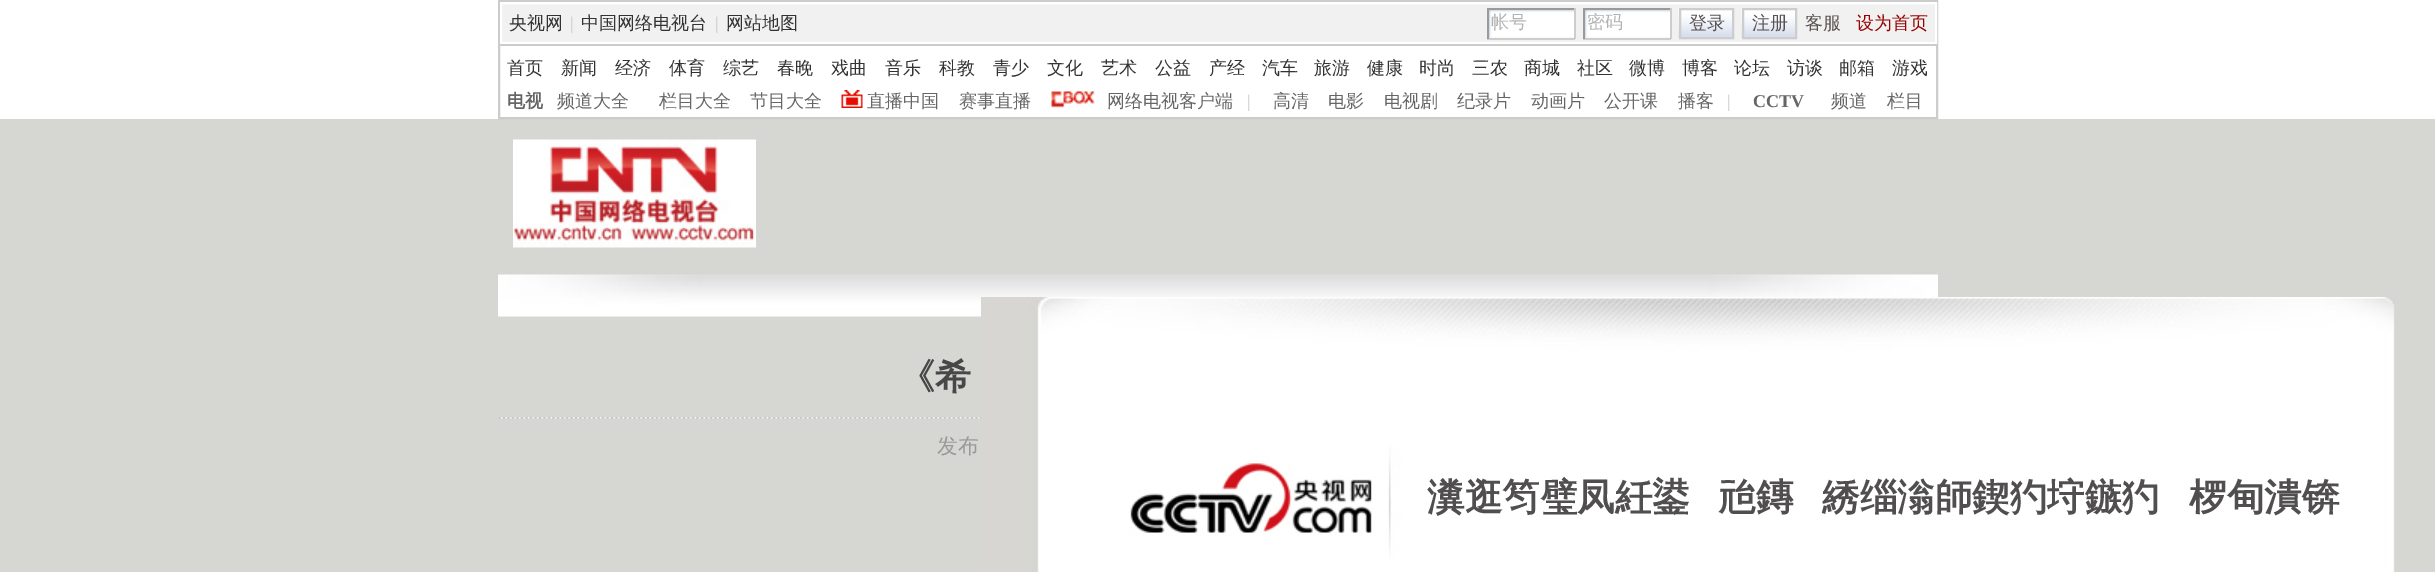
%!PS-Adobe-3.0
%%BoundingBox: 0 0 2435 572
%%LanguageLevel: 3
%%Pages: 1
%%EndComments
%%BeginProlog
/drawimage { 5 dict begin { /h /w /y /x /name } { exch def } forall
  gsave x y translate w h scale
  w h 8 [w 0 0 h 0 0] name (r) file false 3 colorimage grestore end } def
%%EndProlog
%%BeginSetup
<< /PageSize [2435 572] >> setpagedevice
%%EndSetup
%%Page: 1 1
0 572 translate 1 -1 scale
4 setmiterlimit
0.839 0.839 0.824 setrgbcolor
0 0 2435 572 rectfill
1 setgray
0 0 2435 119 rectfill
0.8 setgray
2 setlinewidth
499 1 1438 117 rectstroke
0.945 setgray
newpath 501 3 moveto 1936 3 lineto 1936 43 lineto 501 43 lineto closepath gsave fill grestore
1 setgray
stroke
(images/1.raw) 1489 10 85 28 drawimage
0.604 setgray
1487 8 88 2 rectfill
0.804 setgray
1574 8 2 31 rectfill
1487 38 88 2 rectfill
0.604 setgray
1487 8 2 31 rectfill
(images/2.raw) 1585 10 85 28 drawimage
1583 8 88 2 rectfill
0.804 setgray
1670 8 2 31 rectfill
1583 38 88 2 rectfill
0.604 setgray
1583 8 2 31 rectfill
(images/3.raw) 1678 9 54 29 drawimage
0.804 setgray
1680 9 53 29 rectstroke
(images/3.raw) 1741 9 54 29 drawimage
1743 9 53 29 rectstroke
0.8 setgray
500 44 1437 2 rectfill
(images/4.raw) 841 90 22 18 drawimage
(images/5.raw) 1050 90 45 18 drawimage
(images/6.raw) 513 139 243 109 drawimage
(images/7.raw) 498 417 483 2 drawimage
(images/8.raw) 498 274 1440 43 drawimage
(images/9.raw) 981 297 1414 275 drawimage
/WenQuanYiZenHei-Medium [18 0 0 -18 0 0] selectfont
0.2 setgray
509 29 moveto (央视网) show
/LiberationSerif-Regular [18 0 0 -18 0 0] selectfont
0.8 setgray
570 29 moveto (|) show
/WenQuanYiZenHei-Medium [18 0 0 -18 0 0] selectfont
0.2 setgray
581 29 moveto (中国网络电视台) show
/LiberationSerif-Regular [18 0 0 -18 0 0] selectfont
0.8 setgray
715 29 moveto (|) show
/WenQuanYiZenHei-Medium [18 0 0 -18 0 0] selectfont
0.2 setgray
726 29 moveto (网站地图) show
0.698 setgray
1491 28 moveto (帐号) show
1587 28 moveto (密码) show
0.345 0.322 0.322 setrgbcolor
1689 29 moveto (登录) show
1752 29 moveto (注册) show
1805 29 moveto (客服) show
0.6 0 0 setrgbcolor
1856 29 moveto (设为首页) show
0.2 setgray
507 74 moveto (首页) show
561 74 moveto (新闻) show
615 74 moveto (经济) show
669 74 moveto (体育) show
723 74 moveto (综艺) show
777 74 moveto (春晚) show
831 74 moveto (戏曲) show
885 74 moveto (音乐) show
939 74 moveto (科教) show
993 74 moveto (青少) show
1047 74 moveto (文化) show
1101 74 moveto (艺术) show
1155 74 moveto (公益) show
1209 74 moveto (产经) show
1262 74 moveto (汽车) show
1314 74 moveto (旅游) show
1367 74 moveto (健康) show
1419 74 moveto (时尚) show
1472 74 moveto (三农) show
1524 74 moveto (商城) show
1577 74 moveto (社区) show
1629 74 moveto (微博) show
1682 74 moveto (博客) show
1734 74 moveto (论坛) show
1787 74 moveto (访谈) show
1839 74 moveto (邮箱) show
1892 74 moveto (游戏) show
/WenQuanYiZenHei-Bold [18 0 0 -18 0 0] selectfont
0.4 setgray
507 107 moveto (电视) show
/WenQuanYiZenHei-Medium [18 0 0 -18 0 0] selectfont
557 107 moveto (频道大全) show
659 107 moveto (栏目大全) show
750 107 moveto (节目大全) show
867 107 moveto (直播中国) show
959 107 moveto (赛事直播) show
1107 107 moveto (网络电视客户端) show
/LiberationSerif-Regular [18 0 0 -18 0 0] selectfont
0.8 setgray
1247 107 moveto (|) show
/WenQuanYiZenHei-Medium [18 0 0 -18 0 0] selectfont
0.4 setgray
1273 107 moveto (高清) show
1328 107 moveto (电影) show
1384 107 moveto (电视剧) show
1457 107 moveto (纪录片) show
1531 107 moveto (动画片) show
1604 107 moveto (公开课) show
1678 107 moveto (播客) show
/LiberationSerif-Regular [18 0 0 -18 0 0] selectfont
0.8 setgray
1727 107 moveto (|) show
/LiberationSerif-Bold [18 0 0 -18 0 0] selectfont
0.4 setgray
1753 107 moveto (CCTV) show
/WenQuanYiZenHei-Medium [18 0 0 -18 0 0] selectfont
1831 107 moveto (频道) show
1887 107 moveto (栏目) show
/WenQuanYiZenHei-Bold [36 0 0 -36 0 0] selectfont
0.278 setgray
899 389 moveto (《希) show
/WenQuanYiZenHei-Medium [21 0 0 -21 0 0] selectfont
0.6 setgray
937 453 moveto (发布) show
/WenQuanYiZenHei-Bold [37.5 0 0 -37.5 0 0] selectfont
0.314 0.306 0.306 setrgbcolor
1427 510 moveto (瀵逛笉璧凤紝鍙) show
1718 510 moveto (兘鏄) show
1822 510 moveto (綉缁滃師鍥犳垨鏃犳) show
2189 510 moveto (椤甸潰锛) show
showpage
%%EOF
